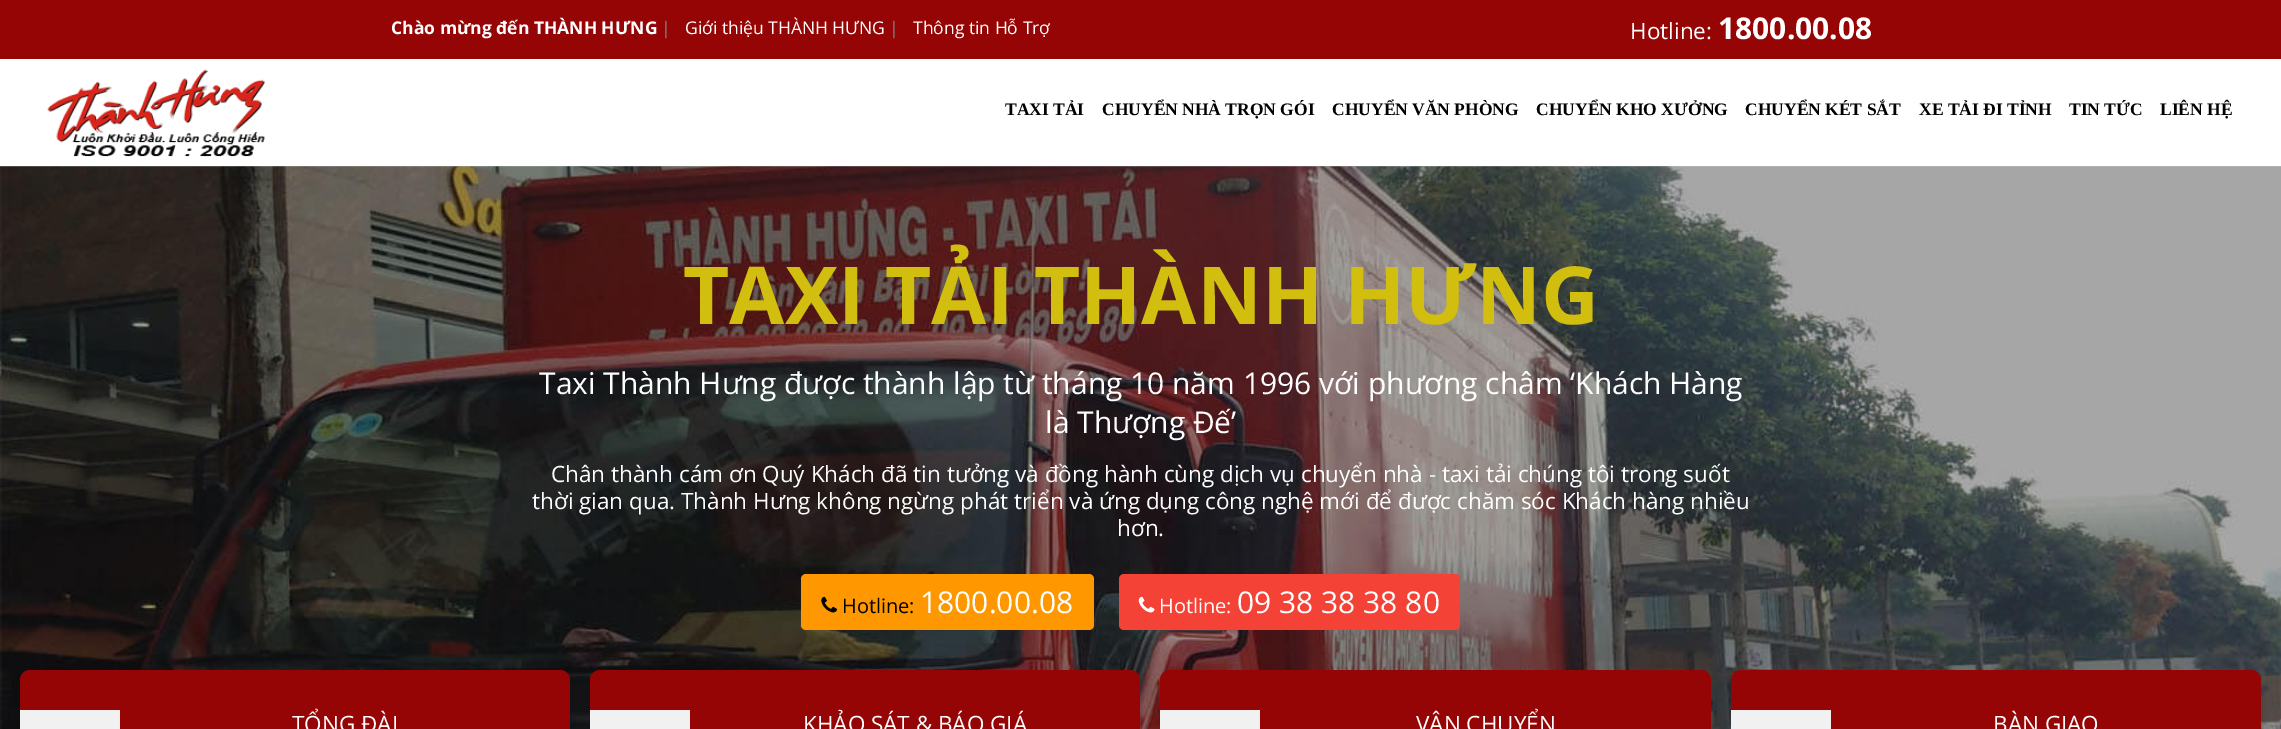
%!PS-Adobe-3.0
%%BoundingBox: 0 0 2281 729
%%LanguageLevel: 3
%%Pages: 1
%%EndComments
%%BeginProlog
/rrect { 5 dict begin { /r /h /w /y /x } { exch def } forall
  x r add y moveto x w add y 2 copy h add r arct x w add y h add x 1 index r arct
  x y h add x y r arct x y 2 copy exch w add exch r arct closepath end } def
/drawimage { 5 dict begin { /h /w /y /x /name } { exch def } forall
  gsave x y translate w h scale
  w h 8 [w 0 0 h 0 0] name (r) file false 3 colorimage grestore end } def
%%EndProlog
%%BeginSetup
<< /PageSize [2281 729] >> setpagedevice
%%EndSetup
%%Page: 1 1
0 729 translate 1 -1 scale
4 setmiterlimit
1 setgray
0 0 2281 729 rectfill
0.584 0.02 0.02 setrgbcolor
0 0 2281 59 rectfill
(images/1.raw) 47 69 218 88 drawimage
(images/2.raw) 0 166 2281 563 drawimage
1 0.596 0 setrgbcolor
801 574 293 56 5 rrect fill
(images/3.raw) 821 596 16 17 drawimage
0.957 0.263 0.212 setrgbcolor
1119 574 341 56 5 rrect fill
(images/4.raw) 1138 596 17 17 drawimage
0.584 0.02 0.02 setrgbcolor
20 670 550 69 10 rrect fill
0.945 setgray
20 711 99 18 rectfill
0.933 setgray
20 710 100 1 rectfill
119 710 1 19 rectfill
0.584 0.02 0.02 setrgbcolor
590 670 550 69 10 rrect fill
0.945 setgray
590 711 99 18 rectfill
0.933 setgray
590 710 100 1 rectfill
689 710 1 19 rectfill
0.584 0.02 0.02 setrgbcolor
1160 670 551 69 10 rrect fill
0.945 setgray
1160 711 99 18 rectfill
0.933 setgray
1160 710 100 1 rectfill
1259 710 1 19 rectfill
0.584 0.02 0.02 setrgbcolor
1731 670 530 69 10 rrect fill
0.945 setgray
1731 711 99 18 rectfill
0.933 setgray
1731 710 100 1 rectfill
1830 710 1 19 rectfill
/OpenSans-Bold [17.5 0 0 -17.5 0 0] selectfont
1 setgray
391 34 moveto (Chào mừng đến THÀNH HƯNG) show
/OpenSans-Regular [17.5 0 0 -17.5 0 0] selectfont
0.506 setgray
661 34 moveto (|) show
1 setgray
685 34 moveto (Giới thiệu THÀNH HƯNG) show
0.506 setgray
889 34 moveto (|) show
1 setgray
913 34 moveto (Thông tin Hỗ Trợ) show
/OpenSans-Regular [22.5 0 0 -22.5 0 0] selectfont
1630 39 moveto (Hotline:) show
/OpenSans-Bold [30 0 0 -30 0 0] selectfont
1718 39 moveto (1800.00.08) show
/LiberationSerif-Bold [17.5 0 0 -17.5 0 0] selectfont
0 setgray
1005 115 moveto (TAXI TẢI) show
1102 115 moveto (CHUYỂN NHÀ TRỌN GÓI) show
1332 115 moveto (CHUYỂN VĂN PHÒNG) show
1536 115 moveto (CHUYỂN KHO XƯỞNG) show
1745 115 moveto (CHUYỂN KÉT SẮT) show
1919 115 moveto (XE TẢI ĐI TỈNH) show
2069 115 moveto (TIN TỨC) show
2160 115 moveto (LIÊN HỆ) show
/OpenSans-Bold [80 0 0 -80 0 0] selectfont
0.824 0.745 0.055 setrgbcolor
683 324 moveto (TAXI TẢI THÀNH HƯNG) show
/OpenSans-Regular [30 0 0 -30 0 0] selectfont
1 setgray
539 394 moveto (Taxi Thành Hưng được thành lập từ tháng 10 năm 1996 với phương châm ‘Khách Hàng) show
1045 433 moveto (là Thượng Đế’) show
/OpenSans-Regular [22.5 0 0 -22.5 0 0] selectfont
551 482 moveto (Chân thành cám ơn Quý Khách đã tin tưởng và đồng hành cùng dịch vụ chuyển nhà - taxi tải chúng tôi trong suốt) show
532 509 moveto (thời gian qua. Thành Hưng không ngừng phát triển và ứng dụng công nghệ mới để được chăm sóc Khách hàng nhiều) show
1117 536 moveto (hơn.) show
/OpenSans-Regular [20 0 0 -20 0 0] selectfont
0 setgray
842 613 moveto (Hotline:) show
/OpenSans-Regular [30 0 0 -30 0 0] selectfont
1 setgray
920 613 moveto (1800.00.08) show
/OpenSans-Regular [20 0 0 -20 0 0] selectfont
1159 613 moveto (Hotline:) show
/OpenSans-Regular [30 0 0 -30 0 0] selectfont
1237 613 moveto (09 38 38 38 80) show
/OpenSans-Regular [22.5 0 0 -22.5 0 0] selectfont
292 732 moveto (TỔNG ĐÀI) show
803 732 moveto (KHẢO SÁT & BÁO GIÁ) show
1416 732 moveto (VẬN CHUYỂN) show
1993 732 moveto (BÀN GIAO) show
showpage
%%EOF
